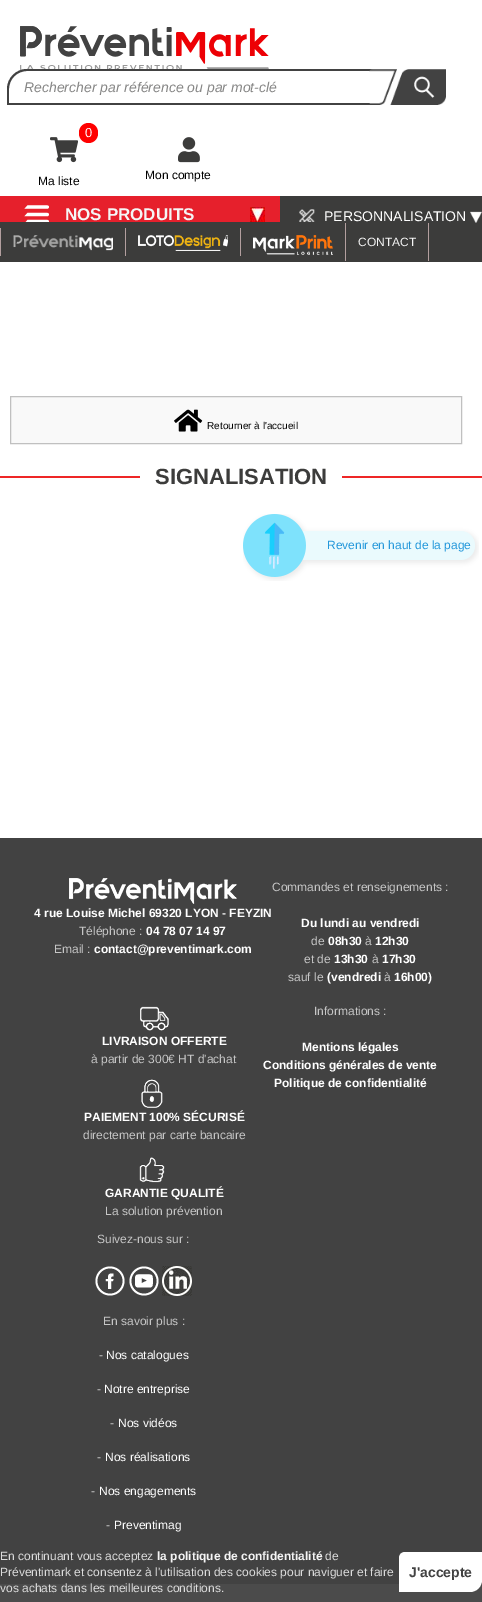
%!PS-Adobe-3.0
%%BoundingBox: 0 0 482 1602
%%LanguageLevel: 3
%%Pages: 1
%%EndComments
%%BeginProlog
/rrect { 5 dict begin { /r /h /w /y /x } { exch def } forall
  x r add y moveto x w add y 2 copy h add r arct x w add y h add x 1 index r arct
  x y h add x y r arct x y 2 copy exch w add exch r arct closepath end } def
/drawimage { 5 dict begin { /h /w /y /x /name } { exch def } forall
  gsave x y translate w h scale
  w h 8 [w 0 0 h 0 0] name (r) file false 3 colorimage grestore end } def
%%EndProlog
%%BeginSetup
<< /PageSize [482 1602] >> setpagedevice
%%EndSetup
%%Page: 1 1
0 1602 translate 1 -1 scale
4 setmiterlimit
1 setgray
0 0 482 1602 rectfill
0.294 setgray
0 1584 482 18 rectfill
(images/1.raw) 20 26 249 45 drawimage
0.259 setgray
newpath 27 69 moveto 431 69 lineto 431 105 lineto 7 105 lineto 7 89 lineto 7 78 16 69 27 69 curveto closepath 27 71 moveto 431 71 lineto 431 103 lineto 9 103 lineto 9 89 lineto 9 79 17 71 27 71 curveto closepath eofill
(images/2.raw) 369 69 77 36 drawimage
1 0 0 setrgbcolor
79 123 19 20 9.5 rrect fill
(images/3.raw) 50 137 28 26 drawimage
(images/4.raw) 178 137 22 26 drawimage
0.235 0.235 0.231 setrgbcolor
280 196 202 66 rectfill
0.902 0.125 0.173 setrgbcolor
0 196 280 26 rectfill
(images/5.raw) 24 205 25 17 drawimage
(images/6.raw) 250 207 15 15 drawimage
(images/7.raw) 299 209 16 13 drawimage
(images/8.raw) 470 211 12 12 drawimage
0.235 0.235 0.231 setrgbcolor
0 222 280 40 rectfill
0.702 0.624 0.624 setrgbcolor
0 228 1 28 rectfill
(images/9.raw) 13 235 100 16 drawimage
125 228 1 28 rectfill
(images/10.raw) 138 235 90 16 drawimage
240 228 1 28 rectfill
(images/11.raw) 253 235 80 20 drawimage
428 223 1 38 rectfill
345 223 1 38 rectfill
0.976 setgray
newpath 10.5 396.5 moveto 461.5 396.5 lineto 461.5 443.5 lineto 10.5 443.5 lineto closepath gsave fill grestore
0.753 setgray
stroke
(images/12.raw) 174 409 29 23 drawimage
0.933 0.149 0.149 setrgbcolor
0 476 482 2 rectfill
1 setgray
140 476 202 2 rectfill
(images/13.raw) 243 514 236 67 drawimage
0.259 setgray
0 838 482 746 rectfill
(images/14.raw) 69 878 168 26 drawimage
(images/15.raw) 140 1006 29 25 drawimage
(images/16.raw) 141 1079 22 29 drawimage
(images/17.raw) 139 1157 26 26 drawimage
(images/18.raw) 95 1266 30 30 drawimage
(images/19.raw) 129 1266 30 30 drawimage
(images/20.raw) 162 1266 30 30 drawimage
1 setgray
newpath 405 1552 moveto 482 1552 lineto 482 1580 lineto 482 1586.5 476.5 1592 470 1592 curveto 399 1592 lineto 399 1558 lineto 399 1554.5 401.5 1552 405 1552 curveto closepath fill
/LiberationSans-Italic [14 0 0 -14 0 0] selectfont
0.529 0.529 0.525 setrgbcolor
24 92 moveto (Rechercher par référence ou par mot-clé) show
/LiberationSans-Regular [13 0 0 -13 0 0] selectfont
1 setgray
85 137 moveto (0) show
/LiberationSans-Regular [12 0 0 -12 0 0] selectfont
0 setgray
38 185 moveto (Ma liste) show
145 179 moveto (Mon compte) show
/LiberationSans-Bold [17 0 0 -17 0 0] selectfont
0.961 setgray
65 220 moveto (NOS PRODUITS) show
/LiberationSans-Regular [14 0 0 -14 0 0] selectfont
1 setgray
324 221 moveto (PERSONNALISATION) show
/LiberationSans-Regular [12 0 0 -12 0 0] selectfont
0.961 setgray
358 246 moveto (CONTACT) show
/LiberationSans-Regular [10 0 0 -10 0 0] selectfont
0 setgray
207 429 moveto (Retourner à l'accueil) show
/LiberationSans-Bold [22 0 0 -22 0 0] selectfont
0.235 0.235 0.231 setrgbcolor
155 484 moveto (SIGNALISATION) show
/LiberationSans-Regular [12 0 0 -12 0 0] selectfont
0.141 0.596 0.859 setrgbcolor
327 549 moveto (Revenir en haut de la page) show
/LiberationSans-Bold [12 0 0 -12 0 0] selectfont
1 setgray
34 917 moveto (4 rue Louise Michel 69320 LYON - FEYZIN) show
/LiberationSans-Regular [12 0 0 -12 0 0] selectfont
0.776 setgray
79 935 moveto (Téléphone :) show
/LiberationSans-Bold [12 0 0 -12 0 0] selectfont
1 setgray
146 935 moveto (04 78 07 14 97) show
/LiberationSans-Regular [12 0 0 -12 0 0] selectfont
0.776 setgray
54 953 moveto (Email :) show
/LiberationSans-Bold [12 0 0 -12 0 0] selectfont
1 setgray
94 953 moveto (contact@preventimark.com) show
/LiberationSans-Regular [12 0 0 -12 0 0] selectfont
0.776 setgray
272 891 moveto (Commandes et renseignements :) show
/LiberationSans-Bold [12 0 0 -12 0 0] selectfont
1 setgray
301 927 moveto (Du lundi au vendredi) show
/LiberationSans-Regular [12 0 0 -12 0 0] selectfont
0.776 setgray
311 945 moveto (de) show
/LiberationSans-Bold [12 0 0 -12 0 0] selectfont
1 setgray
328 945 moveto (08h30) show
/LiberationSans-Regular [12 0 0 -12 0 0] selectfont
0.776 setgray
365 945 moveto (à) show
/LiberationSans-Bold [12 0 0 -12 0 0] selectfont
1 setgray
375 945 moveto (12h30) show
/LiberationSans-Regular [12 0 0 -12 0 0] selectfont
0.776 setgray
304 963 moveto (et de) show
/LiberationSans-Bold [12 0 0 -12 0 0] selectfont
1 setgray
334 963 moveto (13h30) show
/LiberationSans-Regular [12 0 0 -12 0 0] selectfont
0.776 setgray
372 963 moveto (à) show
/LiberationSans-Bold [12 0 0 -12 0 0] selectfont
1 setgray
382 963 moveto (17h30) show
/LiberationSans-Regular [12 0 0 -12 0 0] selectfont
0.776 setgray
288 981 moveto (sauf le) show
/LiberationSans-Bold [12 0 0 -12 0 0] selectfont
1 setgray
327 981 moveto (\(vendredi) show
/LiberationSans-Regular [12 0 0 -12 0 0] selectfont
0.776 setgray
384 981 moveto (à) show
/LiberationSans-Bold [12 0 0 -12 0 0] selectfont
1 setgray
394 981 moveto (16h00\)) show
102 1045 moveto (LIVRAISON OFFERTE) show
/LiberationSans-Regular [12 0 0 -12 0 0] selectfont
0.776 setgray
91 1063 moveto (à partir de 300€ HT d'achat) show
/LiberationSans-Bold [12 0 0 -12 0 0] selectfont
1 setgray
84 1121 moveto (PAIEMENT 100% SÉCURISÉ) show
/LiberationSans-Regular [12 0 0 -12 0 0] selectfont
0.776 setgray
83 1139 moveto (directement par carte bancaire) show
/LiberationSans-Bold [12 0 0 -12 0 0] selectfont
1 setgray
105 1197 moveto (GARANTIE QUALITÉ) show
/LiberationSans-Regular [12 0 0 -12 0 0] selectfont
0.776 setgray
105 1215 moveto (La solution prévention) show
314 1015 moveto (Informations :) show
/LiberationSans-Bold [12 0 0 -12 0 0] selectfont
1 setgray
302 1051 moveto (Mentions légales) show
263 1069 moveto (Conditions générales de vente) show
274 1087 moveto (Politique de confidentialité) show
/LiberationSans-Regular [12 0 0 -12 0 0] selectfont
0.776 setgray
97 1243 moveto (Suivez-nous sur :) show
103 1325 moveto (En savoir plus :) show
99 1359 moveto (-) show
1 setgray
106 1359 moveto (Nos catalogues) show
0.776 setgray
97 1393 moveto (-) show
1 setgray
104 1393 moveto (Notre entreprise) show
0.776 setgray
110 1427 moveto (-) show
1 setgray
118 1427 moveto (Nos vidéos) show
0.776 setgray
97 1461 moveto (-) show
1 setgray
105 1461 moveto (Nos réalisations) show
0.776 setgray
91 1495 moveto (-) show
1 setgray
99 1495 moveto (Nos engagements) show
0.776 setgray
106 1529 moveto (-) show
1 setgray
114 1529 moveto (Preventimag) show
0.863 setgray
0 1560 moveto (En continuant vous acceptez) show
/LiberationSans-Bold [12 0 0 -12 0 0] selectfont
0.961 setgray
157 1560 moveto (la politique de confidentialité) show
/LiberationSans-Regular [12 0 0 -12 0 0] selectfont
0.863 setgray
325 1560 moveto (de) show
0 1576 moveto (Préventimark et consentez à l'utilisation des cookies pour naviguer et faire) show
0 1592 moveto (vos achats dans les meilleures conditions.) show
/LiberationSans-Bold [14 0 0 -14 0 0] selectfont
0.259 setgray
409 1577 moveto (J'accepte) show
showpage
%%EOF
